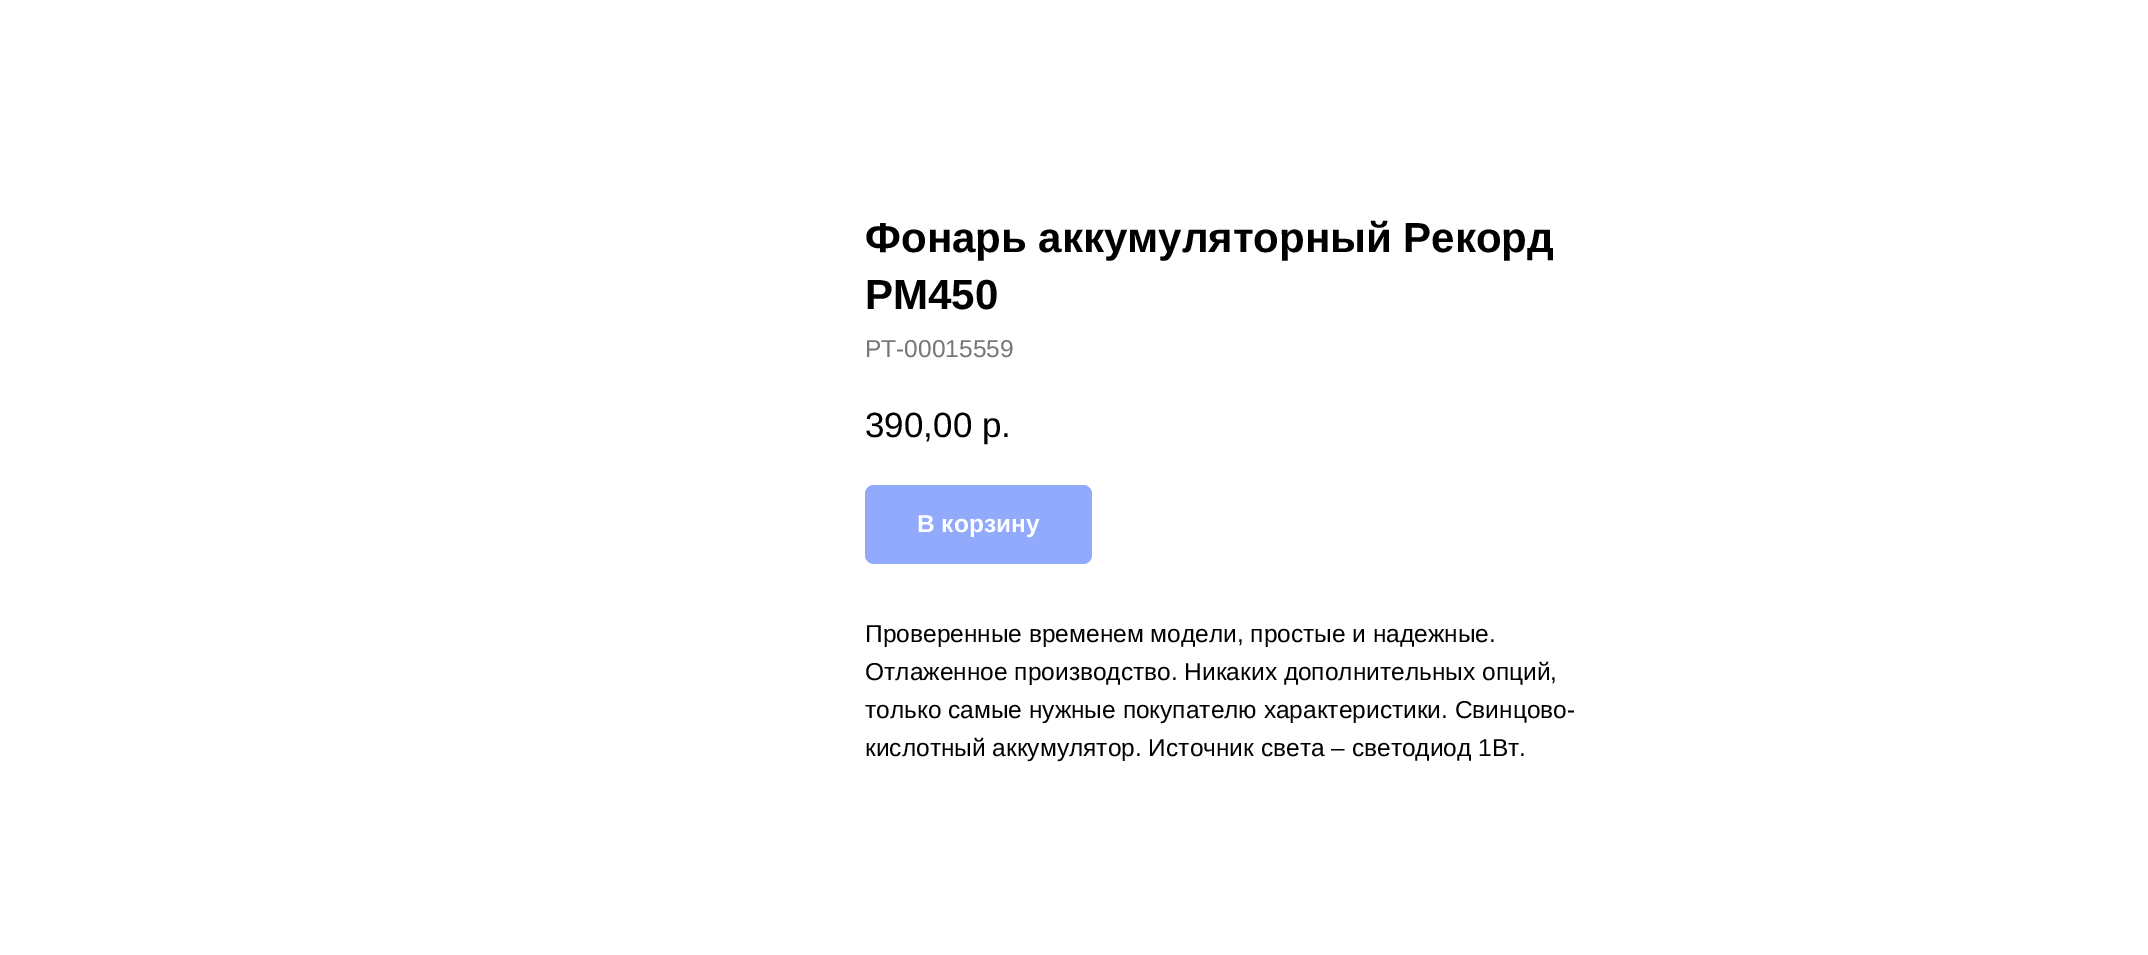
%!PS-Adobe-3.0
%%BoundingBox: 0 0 2148 955
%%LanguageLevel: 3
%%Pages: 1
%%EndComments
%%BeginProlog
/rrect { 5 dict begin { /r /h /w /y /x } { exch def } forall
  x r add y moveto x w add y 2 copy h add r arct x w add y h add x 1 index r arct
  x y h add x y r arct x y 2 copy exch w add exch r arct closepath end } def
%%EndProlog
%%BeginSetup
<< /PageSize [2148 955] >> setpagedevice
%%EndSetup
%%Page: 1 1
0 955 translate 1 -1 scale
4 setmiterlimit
1 setgray
0 0 2148 955 rectfill
0.569 0.667 0.984 setrgbcolor
865 485 227 79 9 rrect fill
/LiberationSans-Bold [42 0 0 -42 0 0] selectfont
0 setgray
865 252 moveto (Фонарь аккумуляторный Рекорд) show
865 309 moveto (РМ450) show
/LiberationSans-Regular [24.5 0 0 -24.5 0 0] selectfont
0.467 setgray
865 357 moveto (PT-00015559) show
/LiberationSans-Regular [35 0 0 -35 0 0] selectfont
0 setgray
865 437 moveto (390,00 р.) show
/LiberationSans-Bold [24.5 0 0 -24.5 0 0] selectfont
1 setgray
917 532 moveto (В корзину) show
/LiberationSans-Regular [24.5 0 0 -24.5 0 0] selectfont
0 setgray
865 642 moveto (Проверенные временем модели, простые и надежные.) show
865 680 moveto (Отлаженное производство. Никаких дополнительных опций,) show
865 718 moveto (только самые нужные покупателю характеристики. Свинцово-) show
865 756 moveto (кислотный аккумулятор. Источник света – светодиод 1Вт.) show
showpage
%%EOF
